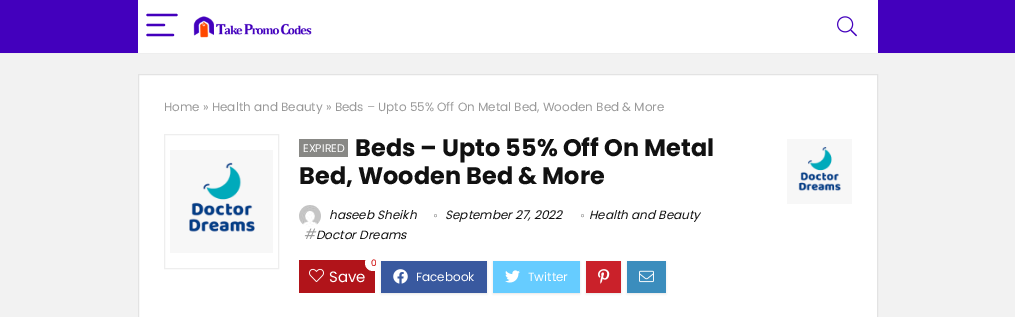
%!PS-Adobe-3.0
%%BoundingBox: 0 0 1015 317
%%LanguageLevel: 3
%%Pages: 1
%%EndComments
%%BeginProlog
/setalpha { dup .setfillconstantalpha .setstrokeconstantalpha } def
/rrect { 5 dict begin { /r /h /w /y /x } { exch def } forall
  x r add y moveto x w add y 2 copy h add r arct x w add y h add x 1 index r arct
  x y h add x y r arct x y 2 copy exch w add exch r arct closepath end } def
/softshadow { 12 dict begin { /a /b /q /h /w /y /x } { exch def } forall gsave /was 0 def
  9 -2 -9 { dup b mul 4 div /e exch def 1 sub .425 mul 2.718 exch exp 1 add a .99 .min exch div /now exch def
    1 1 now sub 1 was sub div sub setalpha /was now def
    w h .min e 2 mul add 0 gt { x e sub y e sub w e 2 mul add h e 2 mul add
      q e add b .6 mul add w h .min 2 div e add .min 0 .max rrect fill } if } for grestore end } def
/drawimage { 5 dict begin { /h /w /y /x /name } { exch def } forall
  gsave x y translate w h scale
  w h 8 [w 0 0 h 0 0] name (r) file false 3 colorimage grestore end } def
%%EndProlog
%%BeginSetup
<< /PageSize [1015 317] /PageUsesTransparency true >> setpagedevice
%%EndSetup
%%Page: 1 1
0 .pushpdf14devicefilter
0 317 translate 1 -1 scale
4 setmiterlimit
0.949 setgray
0 0 1015 317 rectfill
0.263 0 0.741 setrgbcolor
0 0 1015 53 rectfill
0.933 setgray
0 53 1015 1 rectfill
1 setgray
138 0 740 53 rectfill
0.263 0 0.741 setrgbcolor
2.2 setlinewidth
1 setlinecap
newpath 147.5 15 moveto 176.5 15 lineto 147.5 25 moveto 164 25 lineto 147.5 35 moveto 173 35 lineto stroke
(images/1.raw) 193 16 119 22 drawimage
(images/2.raw) 837 16 20 21 drawimage
1 setgray
newpath 138.5 74.5 moveto 877.5 74.5 lineto 877.5 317.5 lineto 138.5 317.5 lineto closepath gsave fill grestore
0.89 setgray
1 setlinewidth
0 setlinecap
stroke
0.933 setgray
164.5 134.5 114 134 rectstroke
(images/3.raw) 170 150 103 103 drawimage
0.533 0.533 0.522 setrgbcolor
299 139 49 18 rectfill
(images/4.raw) 299 205 22 22 drawimage
(images/5.raw) 434 214 3 4 drawimage
(images/5.raw) 581 214 3 4 drawimage
(images/6.raw) 304 228 13 11 drawimage
0.694 0.078 0.102 setrgbcolor
299 260 76 33 rectfill
gsave
299 257 468 42 rectclip
1 setgray
365 255 17 16 8 rrect fill
grestore
(images/7.raw) 309 268 15 14 drawimage
0.894 setgray
381 262 106 32 0 1 1 softshadow
0.224 0.349 0.624 setrgbcolor
381 261 106 32 rectfill
(images/8.raw) 393 269 15 15 drawimage
0.894 setgray
493 262 87 32 0 1 1 softshadow
0.4 0.8 1 setrgbcolor
493 261 87 32 rectfill
(images/9.raw) 505 270 15 13 drawimage
0.894 setgray
586 262 35 32 0 1 1 softshadow
0.792 0.129 0.165 setrgbcolor
586 261 35 32 rectfill
(images/10.raw) 598 269 12 15 drawimage
0.894 setgray
627 262 39 32 0 1 1 softshadow
0.231 0.553 0.741 setrgbcolor
627 261 39 32 rectfill
(images/11.raw) 639 270 15 13 drawimage
(images/12.raw) 787 139 65 65 drawimage
/Poppins-Regular [12 0 0 -12 0 0] selectfont
0.6 setgray
164 111 moveto (Home » Health and Beauty » Beds – Upto 55% Off On Metal Bed, Wooden Bed & More) show
/Poppins-Bold [24 0 0 -24 0 0] selectfont
0.067 setgray
355 156 moveto (Beds – Upto 55% Off On Metal) show
299 184 moveto (Bed, Wooden Bed & More) show
/Poppins-Regular [11 0 0 -11 0 0] selectfont
1 setgray
303 152 moveto (EXPIRED) show
/Poppins-Italic [12 0 0 -12 0 0] selectfont
0.067 setgray
329 219 moveto (haseeb Sheikh) show
445 219 moveto (September 27, 2022) show
589 219 moveto (Health and Beauty) show
316 239 moveto (Doctor Dreams) show
/Poppins-Regular [9 0 0 -9 0 0] selectfont
0.8 0 0 setrgbcolor
371 266 moveto (0) show
/Poppins-Regular [15 0 0 -15 0 0] selectfont
1 setgray
329 282 moveto (Save) show
/Poppins-Regular [12 0 0 -12 0 0] selectfont
416 281 moveto (Facebook) show
528 281 moveto (Twitter) show
.poppdf14devicefilter showpage
%%EOF
